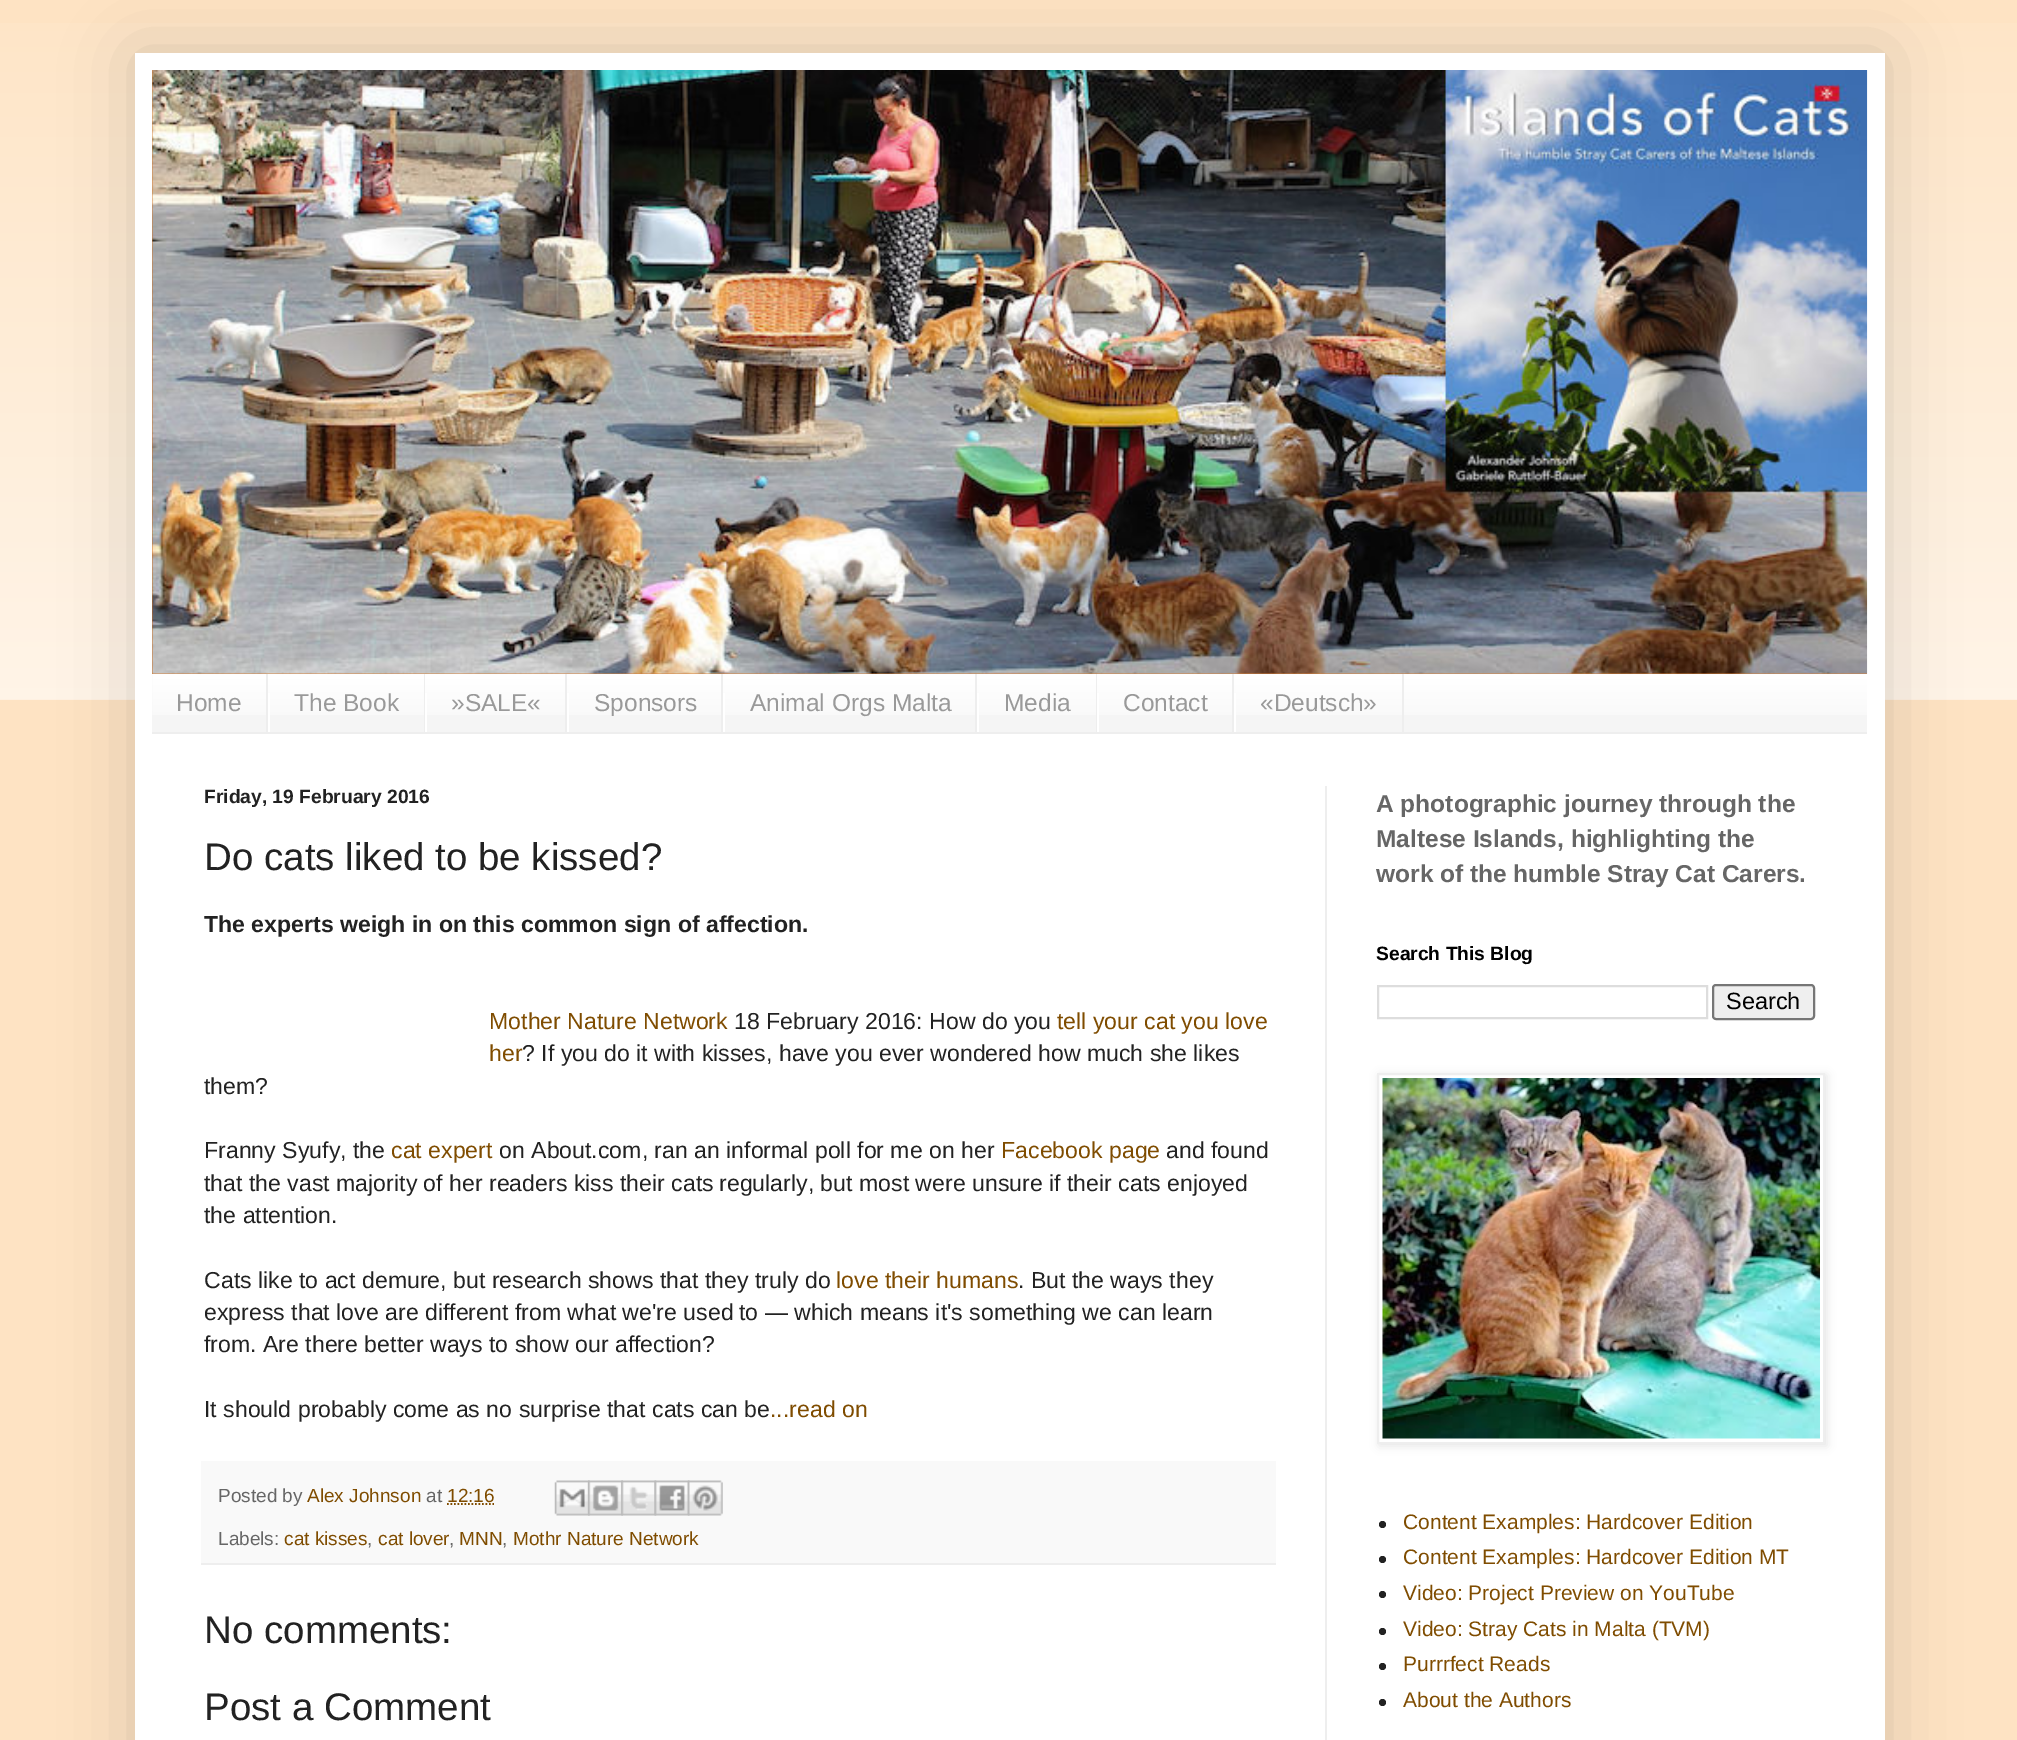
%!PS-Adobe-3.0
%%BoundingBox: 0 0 2017 1740
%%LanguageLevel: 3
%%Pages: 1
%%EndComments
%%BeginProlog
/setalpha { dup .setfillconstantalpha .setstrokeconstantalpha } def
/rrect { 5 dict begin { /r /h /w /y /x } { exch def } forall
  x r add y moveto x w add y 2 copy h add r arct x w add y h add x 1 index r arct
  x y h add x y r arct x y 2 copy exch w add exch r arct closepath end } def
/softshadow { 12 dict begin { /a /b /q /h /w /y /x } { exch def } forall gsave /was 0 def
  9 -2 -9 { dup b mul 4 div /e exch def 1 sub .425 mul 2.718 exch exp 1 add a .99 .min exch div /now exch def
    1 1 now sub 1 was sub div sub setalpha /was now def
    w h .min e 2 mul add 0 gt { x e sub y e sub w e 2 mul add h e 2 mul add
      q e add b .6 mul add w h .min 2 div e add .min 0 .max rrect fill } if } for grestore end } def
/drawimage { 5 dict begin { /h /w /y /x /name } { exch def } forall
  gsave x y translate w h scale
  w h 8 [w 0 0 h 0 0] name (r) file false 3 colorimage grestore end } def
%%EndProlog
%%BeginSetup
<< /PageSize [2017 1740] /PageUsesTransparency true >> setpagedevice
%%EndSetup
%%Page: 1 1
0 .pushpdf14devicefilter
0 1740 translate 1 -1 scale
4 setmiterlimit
0.996 0.89 0.765 setrgbcolor
0 0 2017 1740 rectfill
(images/1.raw) 0 23 2017 677 drawimage
0 setgray
135 53 1750 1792 0 35 0.15 softshadow
1 setgray
135 53 1750 1687 rectfill
0.8 0.4 0.067 setrgbcolor
152 70 1715 604 rectfill
(images/2.raw) 152 70 1 223 drawimage
(images/3.raw) 152 70 1716 604 drawimage
0.961 setgray
152 674 1715 58 rectfill
(images/4.raw) 152 673 1715 42 drawimage
0.933 setgray
152 732 1715 2 rectfill
266 674 2 58 rectfill
424 674 1 58 rectfill
1 setgray
268 693 2 39 rectfill
0.933 setgray
565 674 2 58 rectfill
1 setgray
425 693 2 39 rectfill
0.933 setgray
721 674 2 58 rectfill
1 setgray
567 693 2 39 rectfill
0.933 setgray
975 674 2 58 rectfill
1 setgray
723 693 2 39 rectfill
0.933 setgray
1096 674 1 58 rectfill
1 setgray
977 693 2 39 rectfill
0.933 setgray
1232 674 2 58 rectfill
1 setgray
1097 693 2 39 rectfill
0.933 setgray
1402 674 2 58 rectfill
1 setgray
1234 693 2 39 rectfill
0.933 setgray
1325 786 2 954 rectfill
0.976 setgray
201 1461 1075 102 rectfill
0.933 setgray
201 1563 1075 2 rectfill
0.498 0.298 0 setrgbcolor
1.8 setlinewidth
[1.75 1.75] 0 setdash
newpath 447 1504 moveto 494 1504 lineto stroke
(images/5.raw) 554 1480 36 36 drawimage
(images/6.raw) 588 1480 35 36 drawimage
(images/7.raw) 621 1480 36 36 drawimage
(images/8.raw) 654 1480 36 36 drawimage
(images/9.raw) 687 1480 36 36 drawimage
0.867 setgray
2 setlinewidth
[] 0 setdash
1378 986 329 32 rectstroke
0.937 setgray
1713 985 101 34 3 rrect gsave fill grestore
0.463 setgray
stroke
0 setgray
1379 1075 448 371 0 4.5 0.1 softshadow
1 setgray
newpath 1378 1074 moveto 1824 1074 lineto 1824 1443 lineto 1378 1443 lineto closepath gsave fill grestore
0.933 setgray
stroke
(images/10.raw) 1382 1078 438 361 drawimage
0.133 setgray
newpath 1382.5 1524.5 3.5 0 360 arc closepath fill
newpath 1382.5 1559.5 3.5 0 360 arc closepath fill
newpath 1382.5 1594.5 3.5 0 360 arc closepath fill
newpath 1382.5 1631.5 3.5 0 360 arc closepath fill
newpath 1382.5 1666.5 3.5 0 360 arc closepath fill
newpath 1382.5 1702.5 3.5 0 360 arc closepath fill
/LiberationSans-Regular [24.5 0 0 -24.5 0 0] selectfont
0.6 setgray
176 711 moveto (Home) show
294 711 moveto (The Book) show
451 711 moveto (»SALE«) show
594 711 moveto (Sponsors) show
750 711 moveto (Animal Orgs Malta) show
1004 711 moveto (Media) show
1123 711 moveto (Contact) show
1260 711 moveto («Deutsch») show
/LiberationSans-Bold [19.25 0 0 -19.25 0 0] selectfont
0.133 setgray
204 803 moveto (Friday, 19 February 2016) show
/LiberationSans-Regular [38.5 0 0 -38.5 0 0] selectfont
204 870 moveto (Do cats liked to be kissed?) show
/LiberationSans-Bold [23.1 0 0 -23.1 0 0] selectfont
204 932 moveto (The experts weigh in on this common sign of affection.) show
/LiberationSans-Regular [23.1 0 0 -23.1 0 0] selectfont
0.498 0.298 0 setrgbcolor
489 1029 moveto (Mother Nature Network) show
0.133 setgray
734 1029 moveto (18 February 2016: How do you) show
0.498 0.298 0 setrgbcolor
1057 1029 moveto (tell your cat you love) show
489 1061 moveto (her) show
0.133 setgray
522 1061 moveto (? If you do it with kisses, have you ever wondered how much she likes) show
204 1094 moveto (them?) show
204 1158 moveto (Franny Syufy, the) show
0.498 0.298 0 setrgbcolor
391 1158 moveto (cat expert) show
0.133 setgray
499 1158 moveto (on About.com, ran an informal poll for me on her) show
0.498 0.298 0 setrgbcolor
1001 1158 moveto (Facebook page) show
0.133 setgray
1166 1158 moveto (and found) show
204 1191 moveto (that the vast majority of her readers kiss their cats) show
719 1191 moveto (regularly, but most were unsure if their cats enjoyed) show
204 1223 moveto (the attention.) show
204 1288 moveto (Cats like to act demure, but research shows that they truly do) show
0.498 0.298 0 setrgbcolor
836 1288 moveto (love their humans) show
0.133 setgray
1018 1288 moveto (. But the ways they) show
204 1320 moveto (express that love are different from what we're used) show
739 1320 moveto (to — which means it's something we can learn) show
204 1352 moveto (from. Are there better ways to show our affection?) show
204 1417 moveto (It should probably come as no surprise that cats can be) show
0.498 0.298 0 setrgbcolor
770 1417 moveto (...read on) show
/LiberationSans-Regular [19 0 0 -19 0 0] selectfont
0.4 setgray
218 1502 moveto (Posted by) show
0.498 0.298 0 setrgbcolor
307 1502 moveto (Alex Johnson) show
0.4 setgray
426 1502 moveto (at) show
0.498 0.298 0 setrgbcolor
447 1502 moveto (12:16) show
0.4 setgray
218 1545 moveto (Labels:) show
0.498 0.298 0 setrgbcolor
284 1545 moveto (cat kisses) show
378 1545 moveto (cat lover) show
459 1545 moveto (MNN) show
513 1545 moveto (Mothr Nature Network) show
0.4 setgray
367 1545 moveto (,) show
449 1545 moveto (,) show
502 1545 moveto (,) show
/LiberationSans-Regular [38.5 0 0 -38.5 0 0] selectfont
0.133 setgray
204 1643 moveto (No comments:) show
204 1720 moveto (Post a Comment) show
/LiberationSans-Bold [24.5 0 0 -24.5 0 0] selectfont
0.4 setgray
1376 812 moveto (A photographic journey through the) show
1376 847 moveto (Maltese Islands, highlighting the) show
1376 882 moveto (work of the humble Stray Cat Carers.) show
/LiberationSans-Bold [19.25 0 0 -19.25 0 0] selectfont
0 setgray
1376 960 moveto (Search This Blog) show
/LiberationSans-Regular [23.5 0 0 -23.5 0 0] selectfont
1726 1009 moveto (Search) show
/LiberationSans-Regular [21 0 0 -21 0 0] selectfont
0.498 0.298 0 setrgbcolor
1403 1529 moveto (Content Examples: Hardcover Edition) show
1403 1564 moveto (Content Examples: Hardcover Edition MT) show
1403 1600 moveto (Video: Project Preview on YouTube) show
1403 1636 moveto (Video: Stray Cats in Malta \(TVM\)) show
1403 1671 moveto (Purrrfect Reads) show
1403 1707 moveto (About the Authors) show
.poppdf14devicefilter showpage
%%EOF
